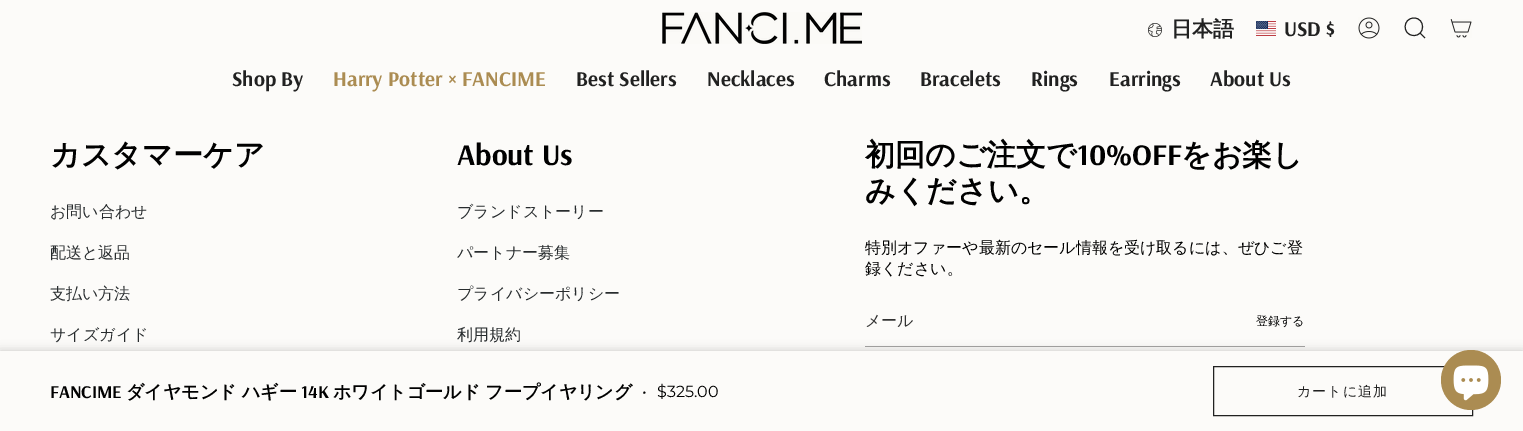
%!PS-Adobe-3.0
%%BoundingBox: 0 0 1523 431
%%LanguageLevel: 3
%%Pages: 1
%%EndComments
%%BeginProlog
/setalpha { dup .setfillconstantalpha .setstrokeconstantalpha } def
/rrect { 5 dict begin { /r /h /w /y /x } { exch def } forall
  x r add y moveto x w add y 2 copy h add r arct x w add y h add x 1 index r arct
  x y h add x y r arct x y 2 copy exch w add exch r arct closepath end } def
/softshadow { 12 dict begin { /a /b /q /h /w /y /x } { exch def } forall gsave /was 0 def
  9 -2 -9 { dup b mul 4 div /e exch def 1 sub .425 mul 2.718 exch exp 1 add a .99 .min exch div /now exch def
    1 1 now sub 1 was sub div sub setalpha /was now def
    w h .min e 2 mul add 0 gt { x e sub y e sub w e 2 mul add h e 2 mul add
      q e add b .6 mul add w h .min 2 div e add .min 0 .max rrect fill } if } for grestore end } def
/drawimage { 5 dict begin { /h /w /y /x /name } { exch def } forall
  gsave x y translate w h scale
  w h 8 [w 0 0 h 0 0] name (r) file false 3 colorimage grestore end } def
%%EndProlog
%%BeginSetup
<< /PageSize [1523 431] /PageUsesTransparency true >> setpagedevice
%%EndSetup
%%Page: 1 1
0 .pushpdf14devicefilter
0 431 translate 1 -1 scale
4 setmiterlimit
0.988 0.984 0.976 setrgbcolor
0 0 1523 431 rectfill
(images/1.raw) 662 12 200 32 drawimage
(images/2.raw) 1148 23 14 14 drawimage
(images/3.raw) 1256 21 20 15 drawimage
(images/4.raw) 1358 17 22 22 drawimage
0.129 setgray
newpath 1414 18 moveto 1425.5 18 1425.5 36 1413.5 35.5 curveto 1402 35 1402.5 18 1414 18 curveto closepath 1420 33 moveto 1425 38 lineto stroke
(images/5.raw) 1450 19 22 19 drawimage
0.643 0.639 0.635 setrgbcolor
865 346 440 1 rectfill
0 setgray
0 351 1523 80 0 5 0.2 softshadow
0.988 0.984 0.976 setrgbcolor
0 351 1523 80 rectfill
0.129 setgray
1213.5 366.5 259 49 rectstroke
0.671 0.549 0.322 setrgbcolor
newpath 1471 380 30 0 360 arc closepath fill
(images/6.raw) 1453 365 36 36 drawimage
/WenQuanYiZenHei-Bold [21 0 0 -21 0 0] selectfont
0.129 setgray
1171 36 moveto (日本語) show
/Arsenal-Bold [21 0 0 -21 0 0] selectfont
1284 36 moveto (USD $) show
232 86 moveto (Shop By) show
0.671 0.549 0.322 setrgbcolor
333 86 moveto (Harry Potter × FANCIME) show
0.129 setgray
576 86 moveto (Best Sellers) show
707 86 moveto (Necklaces) show
824 86 moveto (Charms) show
920 86 moveto (Bracelets) show
1031 86 moveto (Rings) show
1109 86 moveto (Earrings) show
1210 86 moveto (About Us) show
/Arsenal-Bold [18 0 0 -18 0 0] selectfont
0 setgray
50 398 moveto (FANCIME) show
/WenQuanYiZenHei-Bold [18 0 0 -18 0 0] selectfont
126 398 moveto (ダイヤモンド ハギー) show
/Arsenal-Bold [18 0 0 -18 0 0] selectfont
301 398 moveto (14K) show
/WenQuanYiZenHei-Bold [18 0 0 -18 0 0] selectfont
333 398 moveto (ホワイトゴールド フープイヤリング) show
/Montserrat-Regular [16 0 0 -16 0 0] selectfont
642 397 moveto (•) show
657 397 moveto ($325.00) show
/WenQuanYiZenHei-Medium [14 0 0 -14 0 0] selectfont
0.129 setgray
1297 396 moveto 1 0 (カートに追加) ashow
/WenQuanYiZenHei-Bold [30 0 0 -30 0 0] selectfont
0 setgray
50 165 moveto (カスタマーケア) show
/WenQuanYiZenHei-Medium [16 0 0 -16 0 0] selectfont
0.157 0.173 0.18 setrgbcolor
50 217 moveto (お問い合わせ) show
50 258 moveto (配送と返品) show
50 299 moveto (支払い方法) show
50 340 moveto (サイズガイド) show
/Arsenal-Bold [30 0 0 -30 0 0] selectfont
0 setgray
457 165 moveto (About Us) show
/WenQuanYiZenHei-Medium [16 0 0 -16 0 0] selectfont
0.157 0.173 0.18 setrgbcolor
457 217 moveto (ブランドストーリー) show
457 258 moveto (パートナー募集) show
457 299 moveto (プライバシーポリシー) show
457 340 moveto (利用規約) show
/WenQuanYiZenHei-Bold [30 0 0 -30 0 0] selectfont
0 setgray
865 165 moveto (初回のご注文で) show
/Arsenal-Bold [30 0 0 -30 0 0] selectfont
1077 165 moveto (10%OFF) show
/WenQuanYiZenHei-Bold [30 0 0 -30 0 0] selectfont
1181 165 moveto (をお楽し) show
865 201 moveto (みください。) show
/WenQuanYiZenHei-Medium [16 0 0 -16 0 0] selectfont
865 253 moveto (特別オファーや最新のセール情報を受け取るには、ぜひご登) show
865 274 moveto (録ください。) show
0.196 setgray
865 326 moveto (メール) show
/WenQuanYiZenHei-Medium [12 0 0 -12 0 0] selectfont
0 setgray
1256 325 moveto (登録する) show
.poppdf14devicefilter showpage
%%EOF
